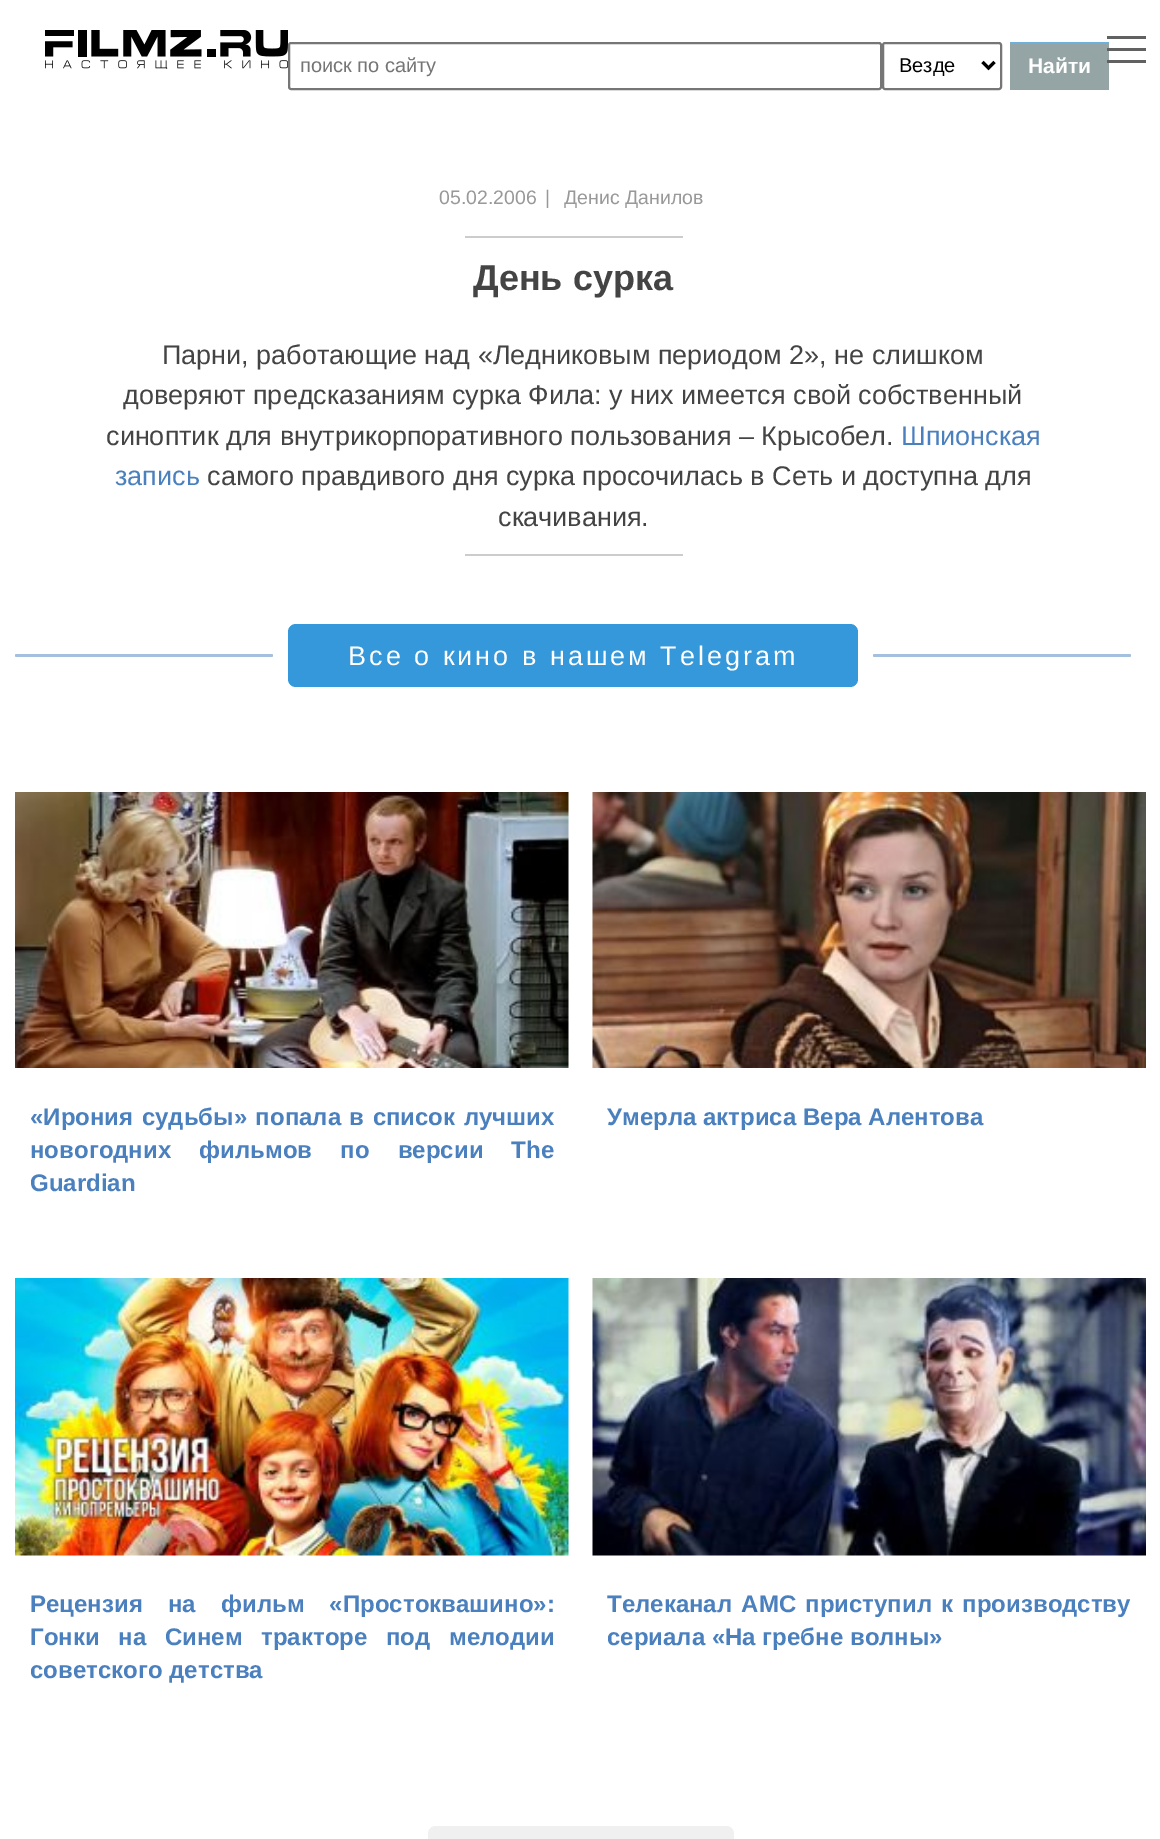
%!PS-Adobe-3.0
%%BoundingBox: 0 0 1160 1839
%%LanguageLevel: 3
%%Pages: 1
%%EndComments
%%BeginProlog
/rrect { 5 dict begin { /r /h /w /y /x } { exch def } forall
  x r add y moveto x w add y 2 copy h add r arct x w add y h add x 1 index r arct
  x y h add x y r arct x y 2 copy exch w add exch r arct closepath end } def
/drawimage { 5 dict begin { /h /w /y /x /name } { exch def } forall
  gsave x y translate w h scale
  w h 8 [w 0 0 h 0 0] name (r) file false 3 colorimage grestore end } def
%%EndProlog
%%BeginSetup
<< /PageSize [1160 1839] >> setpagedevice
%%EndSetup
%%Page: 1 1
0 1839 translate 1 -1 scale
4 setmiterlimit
1 setgray
0 0 1160 1839 rectfill
0.584 0.647 0.651 setrgbcolor
1010 44 99 46 rectfill
0.38 setgray
1107 48 39 3 rectfill
1107 36 39 3 rectfill
1107 60 39 3 rectfill
(images/1.raw) 45 30 243 39 drawimage
0.463 setgray
2 setlinewidth
289 43 592 46 2 rrect stroke
883 43 118 46 2 rrect stroke
0 setgray
3 setlinewidth
newpath 982.5 62 moveto 988.5 68 lineto 994.5 62 lineto stroke
0.435 0.69 0.859 setrgbcolor
1010 42 99 2 rectfill
0.8 setgray
465 236 218 2 rectfill
465 554 218 2 rectfill
0.647 0.753 0.875 setrgbcolor
15 654 258 3 1.5 rrect fill
0.204 0.596 0.859 setrgbcolor
288 624 570 63 8 rrect fill
0.647 0.753 0.875 setrgbcolor
873 654 258 3 1.5 rrect fill
(images/2.raw) 15 792 554 276 drawimage
(images/3.raw) 592 792 554 276 drawimage
(images/4.raw) 15 1278 554 278 drawimage
(images/5.raw) 592 1278 554 278 drawimage
0.941 setgray
428 1826 306 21 8 rrect fill
/LiberationSans-Regular [20 0 0 -20 0 0] selectfont
0.459 setgray
300 72 moveto (поиск по сайту) show
0 setgray
899 72 moveto (Везде) show
/LiberationSans-Bold [21 0 0 -21 0 0] selectfont
1 setgray
1028 73 moveto (Найти) show
/LiberationSans-Regular [19.5 0 0 -19.5 0 0] selectfont
0.6 setgray
439 204 moveto (05.02.2006) show
545 204 moveto (|) show
564 204 moveto (Денис Данилов) show
/LiberationSans-Bold [36 0 0 -36 0 0] selectfont
0.267 setgray
473 290 moveto (День сурка) show
/LiberationSans-Regular [27 0 0 -27 0 0] selectfont
162 364 moveto (Парни, работающие над «Ледниковым периодом 2», не слишком) show
123 404 moveto (доверяют предсказаниям сурка Фила: у них имеется свой собственный) show
106 445 moveto (синоптик для внутрикорпоративного пользования – Крысобел.) show
0.29 0.502 0.745 setrgbcolor
901 445 moveto (Шпионская) show
115 485 moveto (запись) show
0.267 setgray
207 485 moveto (самого правдивого дня сурка просочилась в Сеть и доступна для) show
498 526 moveto (скачивания.) show
1 setgray
348 665 moveto 3 0 (Все о кино в нашем Telegram) ashow
/LiberationSans-Bold [24 0 0 -24 0 0] selectfont
0.29 0.502 0.745 setrgbcolor
30 1125 moveto 1.75 0 32 («Ирония судьбы» попала в список лучших) widthshow
30 1158 moveto 21.5 0 32 (новогодних фильмов по версии The) widthshow
30 1191 moveto (Guardian) show
607 1125 moveto (Умерла актриса Вера Алентова) show
30 1612 moveto 18.5 0 32 (Рецензия на фильм «Простоквашино»:) widthshow
30 1645 moveto 12 0 32 (Гонки на Синем тракторе под мелодии) widthshow
30 1678 moveto (советского детства) show
607 1612 moveto 2.5 0 32 (Телеканал AMC приступил к производству) widthshow
607 1645 moveto (сериала «На гребне волны») show
showpage
%%EOF
